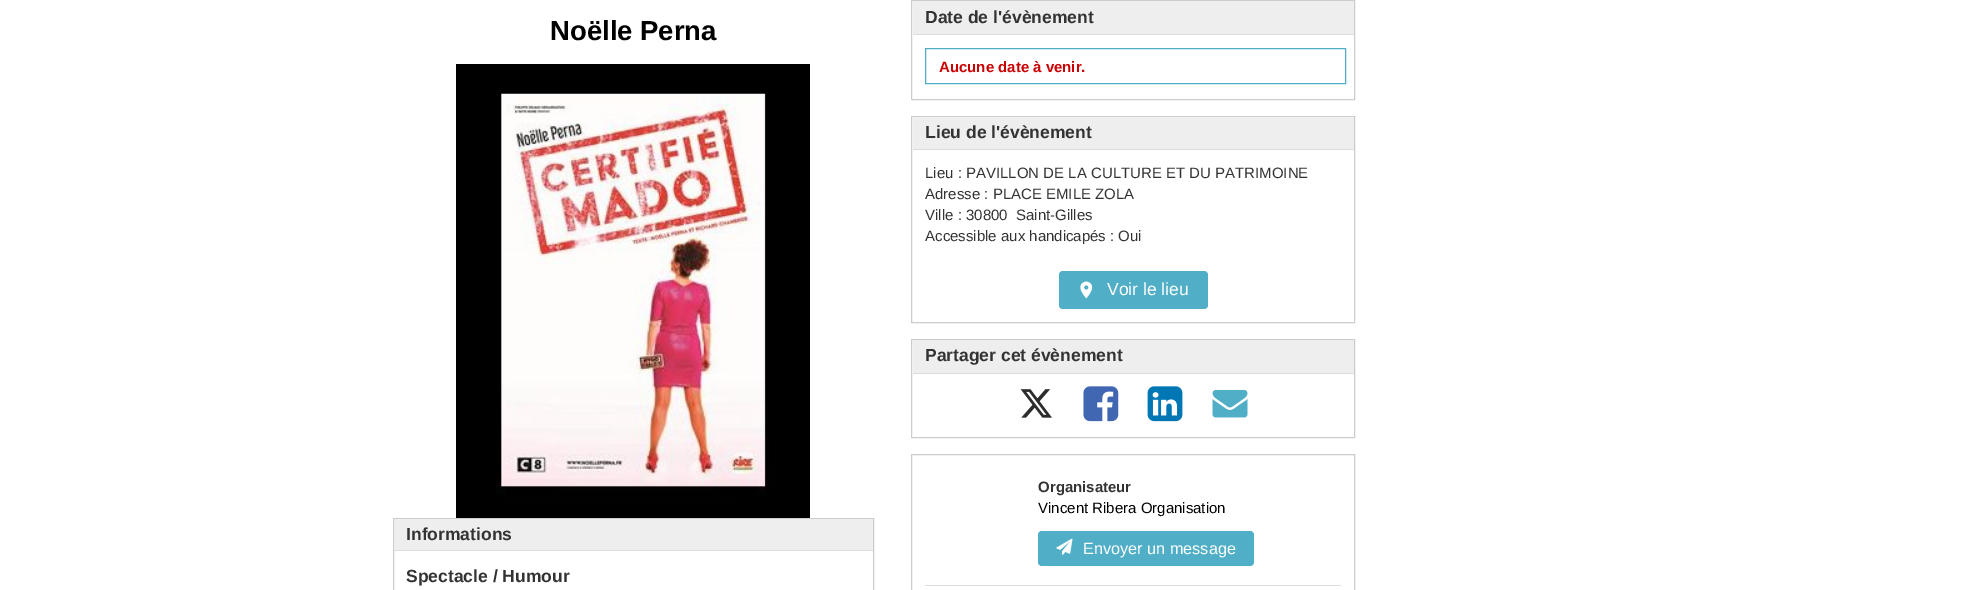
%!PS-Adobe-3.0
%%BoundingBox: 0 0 1967 590
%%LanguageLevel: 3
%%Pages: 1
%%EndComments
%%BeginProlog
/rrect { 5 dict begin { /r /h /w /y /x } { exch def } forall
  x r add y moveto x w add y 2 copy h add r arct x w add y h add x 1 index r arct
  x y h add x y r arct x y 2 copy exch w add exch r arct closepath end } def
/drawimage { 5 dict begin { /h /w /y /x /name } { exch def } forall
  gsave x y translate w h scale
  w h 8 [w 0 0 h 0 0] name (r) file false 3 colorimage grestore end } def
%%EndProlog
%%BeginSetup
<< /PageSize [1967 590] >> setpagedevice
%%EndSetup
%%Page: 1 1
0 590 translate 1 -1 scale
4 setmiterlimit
1 setgray
0 0 1967 590 rectfill
(images/1.raw) 456 64 354 454 drawimage
0.8 setgray
393.5 518.5 480 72 rectstroke
0.933 setgray
394 519 479 31 rectfill
0.867 setgray
394 550 479 1 rectfill
0.8 setgray
911.5 0.5 443 99 rectstroke
0.933 setgray
913 1 441 33 rectfill
0.867 setgray
913 34 441 1 rectfill
0.314 0.686 0.776 setrgbcolor
925.5 48.5 420 35 rectstroke
0.8 setgray
911.5 116.5 443 206 rectstroke
0.933 setgray
913 118 441 31 rectfill
0.867 setgray
913 149 441 1 rectfill
0.314 0.686 0.776 setrgbcolor
1059 271 149 38 4 rrect fill
(images/2.raw) 1080 281 13 18 drawimage
0.8 setgray
911.5 339.5 443 98 rectstroke
0.933 setgray
913 340 441 33 rectfill
0.867 setgray
913 373 441 1 rectfill
(images/3.raw) 1020 389 32 29 drawimage
(images/4.raw) 1083 386 36 36 drawimage
(images/5.raw) 1147 386 36 36 drawimage
(images/6.raw) 1212 390 36 28 drawimage
0.8 setgray
911.5 454.5 443 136 rectstroke
0.314 0.686 0.776 setrgbcolor
1038 531 216 35 4 rrect fill
(images/7.raw) 1056 538 17 17 drawimage
0.867 setgray
925 585 416 1 rectfill
/LiberationSans-Bold [27.5 0 0 -27.5 0 0] selectfont
0 setgray
550 40 moveto (Noëlle Perna) show
/LiberationSans-Bold [17.5 0 0 -17.5 0 0] selectfont
0.2 setgray
406 540 moveto (Informations) show
406 582 moveto (Spectacle / Humour) show
925 23 moveto (Date de l'évènement) show
/LiberationSans-Bold [15 0 0 -15 0 0] selectfont
0.8 0 0 setrgbcolor
939 72 moveto (Aucune date à venir.) show
/LiberationSans-Bold [17.5 0 0 -17.5 0 0] selectfont
0.2 setgray
925 138 moveto (Lieu de l'évènement) show
/LiberationSans-Regular [15 0 0 -15 0 0] selectfont
925 178 moveto (Lieu : PAVILLON DE LA CULTURE ET DU PATRIMOINE) show
925 199 moveto (Adresse : PLACE EMILE ZOLA) show
925 220 moveto (Ville : 30800  Saint-Gilles) show
925 241 moveto (Accessible aux handicapés : Oui) show
/LiberationSans-Regular [17.5 0 0 -17.5 0 0] selectfont
1 setgray
1107 295 moveto (Voir le lieu) show
/LiberationSans-Bold [17.5 0 0 -17.5 0 0] selectfont
0.2 setgray
925 361 moveto (Partager cet évènement) show
/LiberationSans-Bold [15 0 0 -15 0 0] selectfont
1038 492 moveto (Organisateur) show
/LiberationSans-Regular [15 0 0 -15 0 0] selectfont
0 setgray
1038 513 moveto (Vincent Ribera Organisation) show
/LiberationSans-Regular [16.25 0 0 -16.25 0 0] selectfont
1 setgray
1083 554 moveto (Envoyer un message) show
showpage
%%EOF
